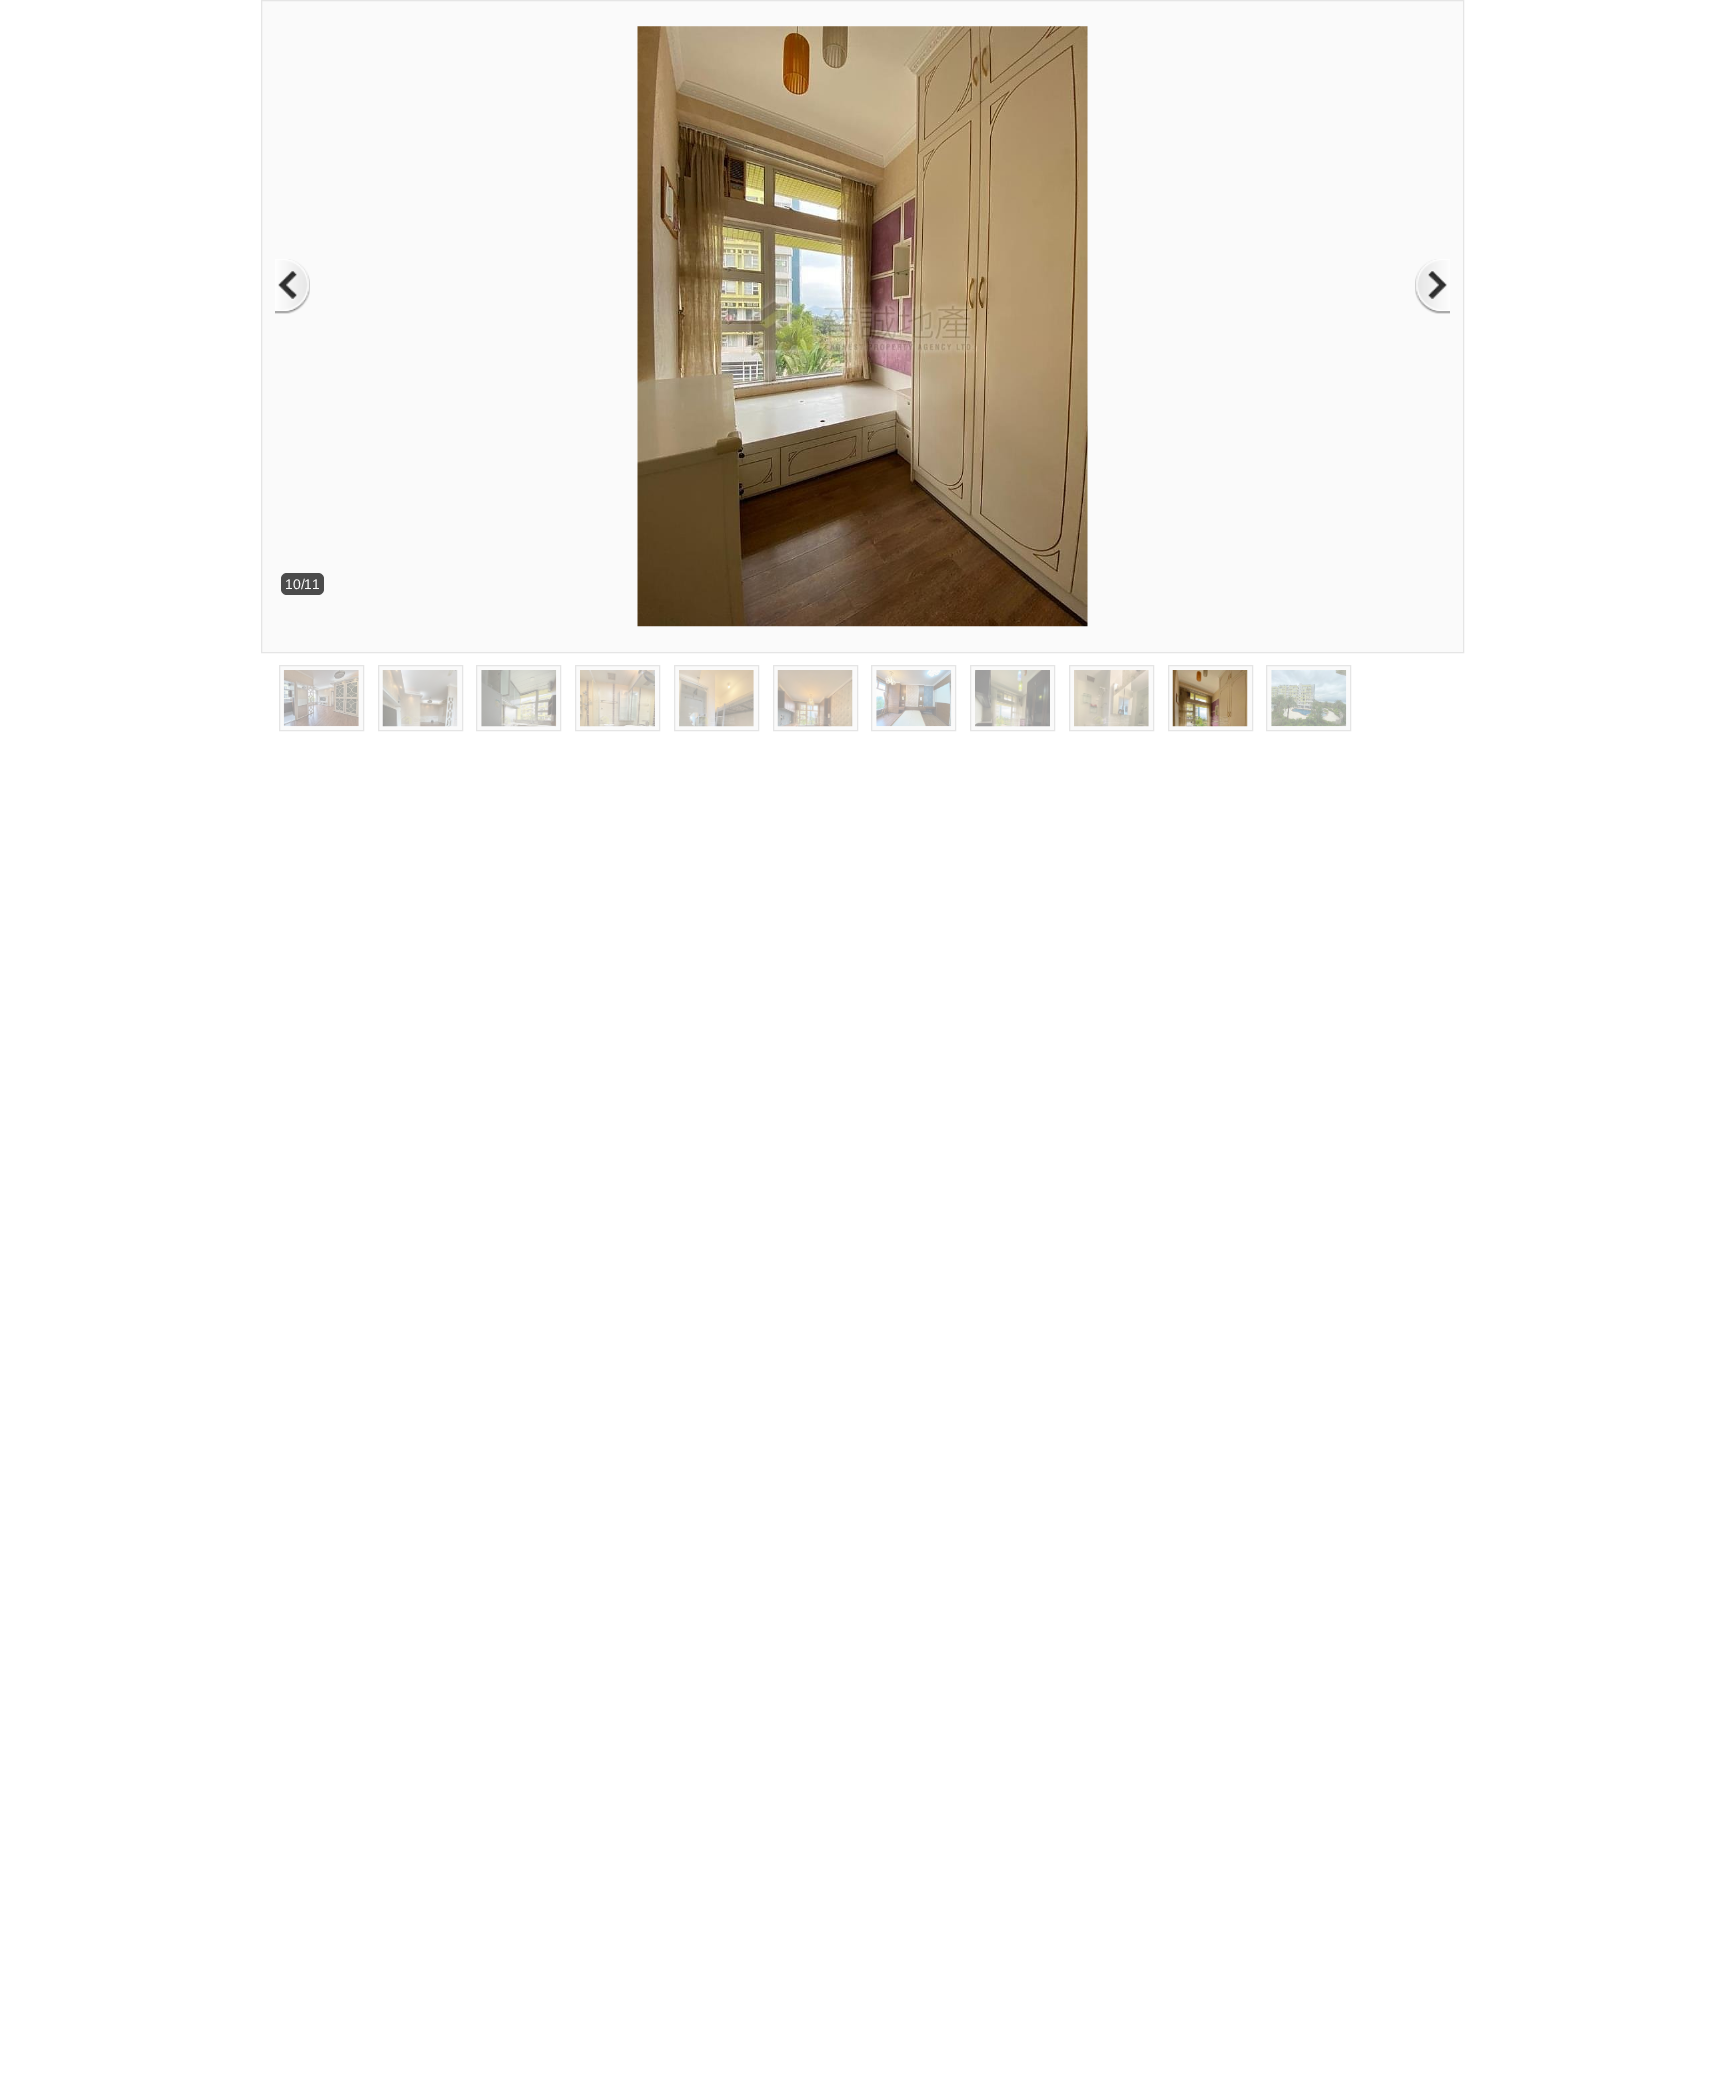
%!PS-Adobe-3.0
%%BoundingBox: 0 0 1735 2091
%%LanguageLevel: 3
%%Pages: 1
%%EndComments
%%BeginProlog
/rrect { 5 dict begin { /r /h /w /y /x } { exch def } forall
  x r add y moveto x w add y 2 copy h add r arct x w add y h add x 1 index r arct
  x y h add x y r arct x y 2 copy exch w add exch r arct closepath end } def
/drawimage { 5 dict begin { /h /w /y /x /name } { exch def } forall
  gsave x y translate w h scale
  w h 8 [w 0 0 h 0 0] name (r) file false 3 colorimage grestore end } def
%%EndProlog
%%BeginSetup
<< /PageSize [1735 2091] >> setpagedevice
%%EndSetup
%%Page: 1 1
0 2091 translate 1 -1 scale
4 setmiterlimit
1 setgray
0 0 1735 2091 rectfill
0.98 setgray
newpath 261.5 0.5 moveto 1463.5 0.5 lineto 1463.5 652.5 lineto 261.5 652.5 lineto closepath gsave fill grestore
0.898 setgray
stroke
(images/1.raw) 275 259 35 55 drawimage
(images/2.raw) 1415 259 35 55 drawimage
0.294 setgray
281 573 43 22 6 rrect fill
(images/3.raw) 637 26 451 601 drawimage
0.98 setgray
newpath 279.5 665.5 moveto 363.5 665.5 lineto 363.5 730.5 lineto 279.5 730.5 lineto closepath gsave fill grestore
0.898 setgray
stroke
(images/4.raw) 283 670 76 57 drawimage
0.98 setgray
newpath 378.5 665.5 moveto 462.5 665.5 lineto 462.5 730.5 lineto 378.5 730.5 lineto closepath gsave fill grestore
0.898 setgray
stroke
(images/5.raw) 382 670 76 57 drawimage
0.98 setgray
newpath 476.5 665.5 moveto 560.5 665.5 lineto 560.5 730.5 lineto 476.5 730.5 lineto closepath gsave fill grestore
0.898 setgray
stroke
(images/6.raw) 481 670 76 57 drawimage
0.98 setgray
newpath 575.5 665.5 moveto 659.5 665.5 lineto 659.5 730.5 lineto 575.5 730.5 lineto closepath gsave fill grestore
0.898 setgray
stroke
(images/7.raw) 580 670 75 57 drawimage
0.98 setgray
newpath 674.5 665.5 moveto 758.5 665.5 lineto 758.5 730.5 lineto 674.5 730.5 lineto closepath gsave fill grestore
0.898 setgray
stroke
(images/8.raw) 679 670 75 57 drawimage
0.98 setgray
newpath 773.5 665.5 moveto 857.5 665.5 lineto 857.5 730.5 lineto 773.5 730.5 lineto closepath gsave fill grestore
0.898 setgray
stroke
(images/9.raw) 777 670 76 57 drawimage
0.98 setgray
newpath 871.5 665.5 moveto 955.5 665.5 lineto 955.5 730.5 lineto 871.5 730.5 lineto closepath gsave fill grestore
0.898 setgray
stroke
(images/10.raw) 876 670 76 57 drawimage
0.98 setgray
newpath 970.5 665.5 moveto 1054.5 665.5 lineto 1054.5 730.5 lineto 970.5 730.5 lineto closepath gsave fill grestore
0.898 setgray
stroke
(images/11.raw) 975 670 75 57 drawimage
0.98 setgray
newpath 1069.5 665.5 moveto 1153.5 665.5 lineto 1153.5 730.5 lineto 1069.5 730.5 lineto closepath gsave fill grestore
0.898 setgray
stroke
(images/12.raw) 1074 670 75 57 drawimage
0.98 setgray
newpath 1168.5 665.5 moveto 1252.5 665.5 lineto 1252.5 730.5 lineto 1168.5 730.5 lineto closepath gsave fill grestore
0.898 setgray
stroke
(images/13.raw) 1172 670 76 57 drawimage
0.98 setgray
newpath 1266.5 665.5 moveto 1350.5 665.5 lineto 1350.5 730.5 lineto 1266.5 730.5 lineto closepath gsave fill grestore
0.898 setgray
stroke
(images/14.raw) 1271 670 76 57 drawimage
/LiberationSans-Regular [14 0 0 -14 0 0] selectfont
1 setgray
285 589 moveto (10/11) show
showpage
%%EOF
